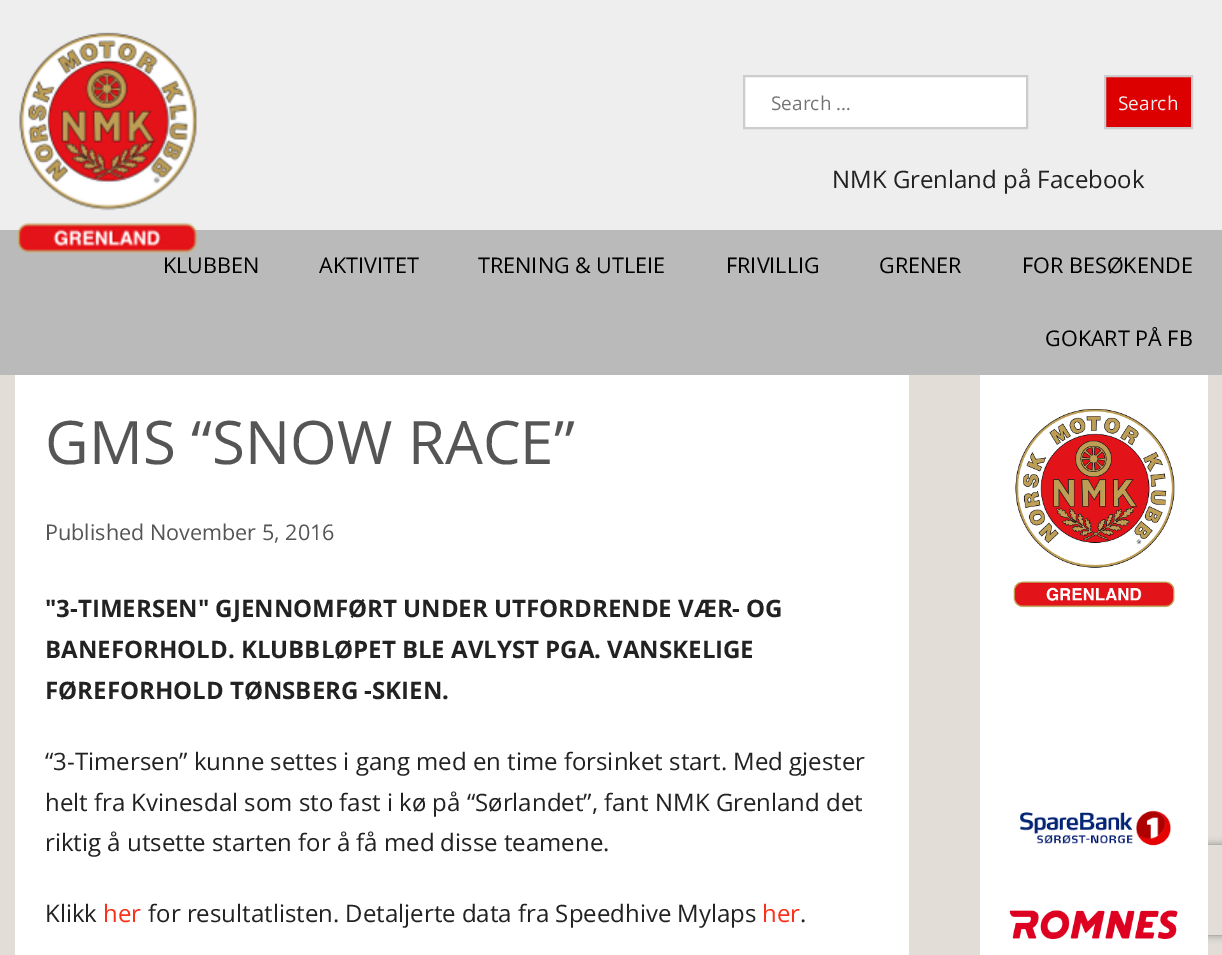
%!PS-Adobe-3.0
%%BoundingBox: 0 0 1222 955
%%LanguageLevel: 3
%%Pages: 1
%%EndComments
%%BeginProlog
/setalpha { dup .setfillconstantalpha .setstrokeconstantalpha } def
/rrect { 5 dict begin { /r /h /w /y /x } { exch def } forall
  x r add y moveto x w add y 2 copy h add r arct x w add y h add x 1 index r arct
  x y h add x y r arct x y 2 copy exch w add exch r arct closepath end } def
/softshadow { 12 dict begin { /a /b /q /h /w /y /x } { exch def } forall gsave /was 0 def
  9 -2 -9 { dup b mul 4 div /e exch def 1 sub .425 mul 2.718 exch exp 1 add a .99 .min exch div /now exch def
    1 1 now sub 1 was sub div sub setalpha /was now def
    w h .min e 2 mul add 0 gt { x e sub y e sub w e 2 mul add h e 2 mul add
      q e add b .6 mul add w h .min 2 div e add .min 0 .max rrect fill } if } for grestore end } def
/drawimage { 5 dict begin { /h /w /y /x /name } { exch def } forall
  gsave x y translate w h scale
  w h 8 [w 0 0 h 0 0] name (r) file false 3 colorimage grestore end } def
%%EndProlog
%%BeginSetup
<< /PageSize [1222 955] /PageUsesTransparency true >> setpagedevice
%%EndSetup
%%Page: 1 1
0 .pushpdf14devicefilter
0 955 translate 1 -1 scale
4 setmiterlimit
0.886 0.867 0.843 setrgbcolor
0 0 1222 955 rectfill
0.933 setgray
0 0 1222 230 rectfill
0.729 setgray
0 230 1222 145 rectfill
(images/1.raw) 17 32 181 222 drawimage
1 setgray
newpath 744 76 moveto 1027 76 lineto 1027 128 lineto 744 128 lineto closepath gsave fill grestore
0.8 setgray
2 setlinewidth
stroke
0.867 0 0 setrgbcolor
newpath 1105 76 moveto 1192 76 lineto 1192 128 lineto 1105 128 lineto closepath gsave fill grestore
0.8 setgray
stroke
1 setgray
15 375 894 580 rectfill
gsave
newpath 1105 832 moveto 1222 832 lineto 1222 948 lineto 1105 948 lineto closepath 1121 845 moveto 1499 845 lineto 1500.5 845 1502 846.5 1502 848 curveto 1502 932 lineto 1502 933.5 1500.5 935 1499 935 curveto 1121 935 lineto 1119.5 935 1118 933.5 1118 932 curveto 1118 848 lineto 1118 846.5 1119.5 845 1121 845 curveto closepath eoclip newpath
0.502 setgray
1118 845 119 90 3 4 1 softshadow
grestore
980 375 228 580 rectfill
(images/2.raw) 1013 409 162 199 drawimage
(images/3.raw) 1020 810 151 36 drawimage
(images/4.raw) 1009 910 169 29 drawimage
/OpenSans-Regular [19 0 0 -19 0 0] selectfont
0.459 setgray
771 110 moveto (Search …) show
0.933 setgray
1118 110 moveto (Search) show
/OpenSans-Regular [24 0 0 -24 0 0] selectfont
0.133 setgray
832 188 moveto (NMK Grenland på Facebook) show
/OpenSans-Regular [21.6 0 0 -21.6 0 0] selectfont
0 setgray
163 273 moveto (KLUBBEN) show
319 273 moveto (AKTIVITET) show
478 273 moveto (TRENING & UTLEIE) show
726 273 moveto (FRIVILLIG) show
879 273 moveto (GRENER) show
1022 273 moveto (FOR BESØKENDE) show
1045 346 moveto (GOKART PÅ FB) show
/OpenSans-Regular [60 0 0 -60 0 0] selectfont
0.333 setgray
45 464 moveto (GMS “SNOW RACE”) show
/OpenSans-Regular [21.6 0 0 -21.6 0 0] selectfont
45 540 moveto (Published November 5, 2016) show
/OpenSans-Bold [24 0 0 -24 0 0] selectfont
0.133 setgray
45 617 moveto ("3-TIMERSEN" GJENNOMFØRT UNDER UTFORDRENDE VÆR- OG) show
45 658 moveto (BANEFORHOLD. KLUBBLØPET BLE AVLYST PGA. VANSKELIGE) show
45 699 moveto (FØREFORHOLD TØNSBERG -SKIEN.) show
/OpenSans-Regular [24 0 0 -24 0 0] selectfont
45 770 moveto (“3-Timersen” kunne settes i gang med en time forsinket start. Med gjester) show
45 811 moveto (helt fra Kvinesdal som sto fast i kø på “Sørlandet”, fant NMK Grenland det) show
45 851 moveto (riktig å utsette starten for å få med disse teamene.) show
45 922 moveto (Klikk) show
0.988 0.184 0.098 setrgbcolor
103 922 moveto (her) show
0.133 setgray
148 922 moveto (for resultatlisten. Detaljerte data fra Speedhive Mylaps) show
0.988 0.184 0.098 setrgbcolor
762 922 moveto (her) show
0.133 setgray
800 922 moveto (.) show
.poppdf14devicefilter showpage
%%EOF
